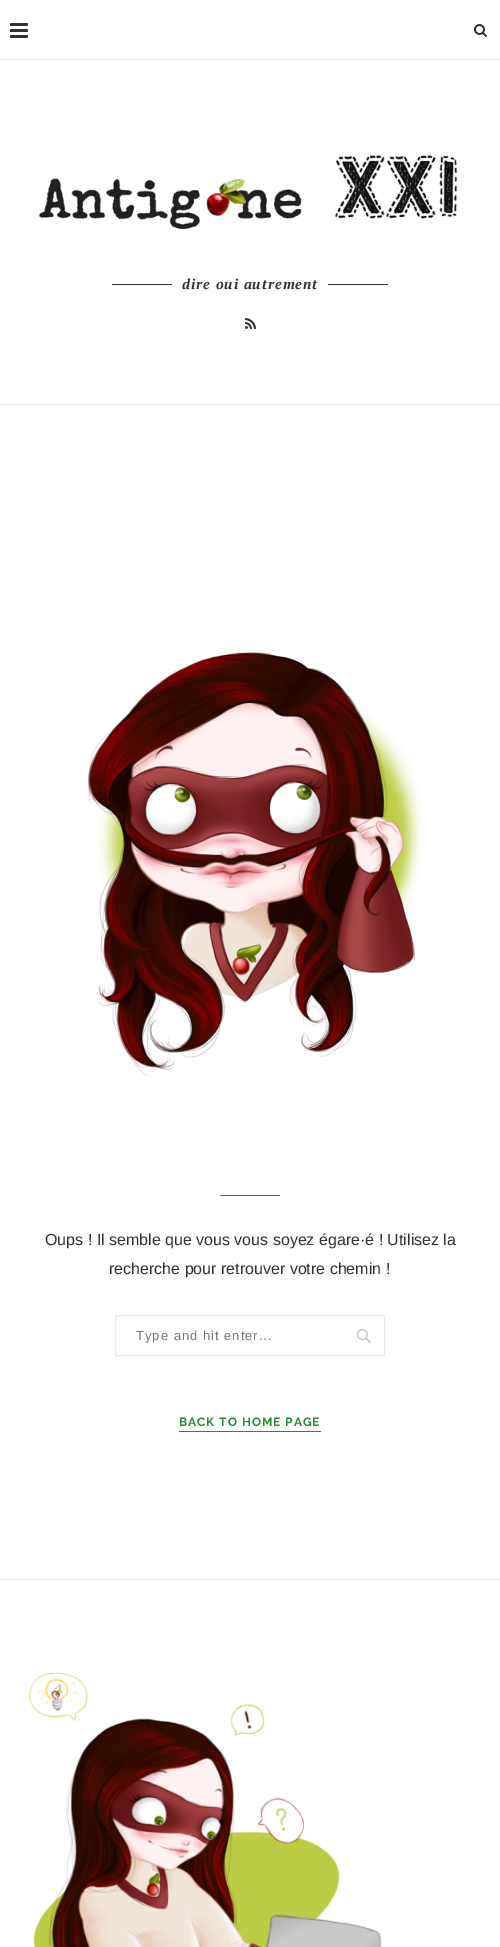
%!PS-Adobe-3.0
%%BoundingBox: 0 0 500 1947
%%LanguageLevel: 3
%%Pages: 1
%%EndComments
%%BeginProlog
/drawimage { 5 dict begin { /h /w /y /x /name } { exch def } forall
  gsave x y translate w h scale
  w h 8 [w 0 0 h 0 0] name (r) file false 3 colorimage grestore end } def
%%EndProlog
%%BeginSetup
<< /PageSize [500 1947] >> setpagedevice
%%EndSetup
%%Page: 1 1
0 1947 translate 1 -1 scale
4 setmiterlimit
1 setgray
0 0 500 1947 rectfill
0.925 setgray
0 59 500 1 rectfill
(images/1.raw) 10 23 18 15 drawimage
(images/2.raw) 474 24 13 13 drawimage
0 404 500 1 rectfill
(images/3.raw) 38 154 420 76 drawimage
0.192 setgray
112 284 60 1 rectfill
328 284 60 1 rectfill
(images/4.raw) 245 318 11 11 drawimage
(images/5.raw) 88 652 336 425 drawimage
0.161 0.537 0.204 setrgbcolor
220 1195 60 1 rectfill
(images/6.raw) 357 1329 14 14 drawimage
0.914 setgray
115.5 1315.5 269 40 rectstroke
0.161 0.537 0.204 setrgbcolor
179 1431 142 1 rectfill
0.925 setgray
0 1579 500 1 rectfill
(images/7.raw) 28 1672 354 275 drawimage
/PTSerif-BoldItalic [14 0 0 -14 0 0] selectfont
0.192 setgray
182 289 moveto 1 0 (dire oui autrement) ashow
/LiberationSans-Regular [16 0 0 -16 0 0] selectfont
45 1245 moveto (Oups ! Il semble que vous vous soyez égare·é ! Utilisez la) show
109 1274 moveto (recherche pour retrouver votre chemin !) show
/LiberationSans-Regular [13 0 0 -13 0 0] selectfont
0.459 setgray
136 1340 moveto 1 0 (Type and hit enter...) ashow
/Raleway-Bold [12 0 0 -12 0 0] selectfont
0.161 0.537 0.204 setrgbcolor
179 1426 moveto 1 0 (BACK TO HOME PAGE) ashow
showpage
%%EOF
